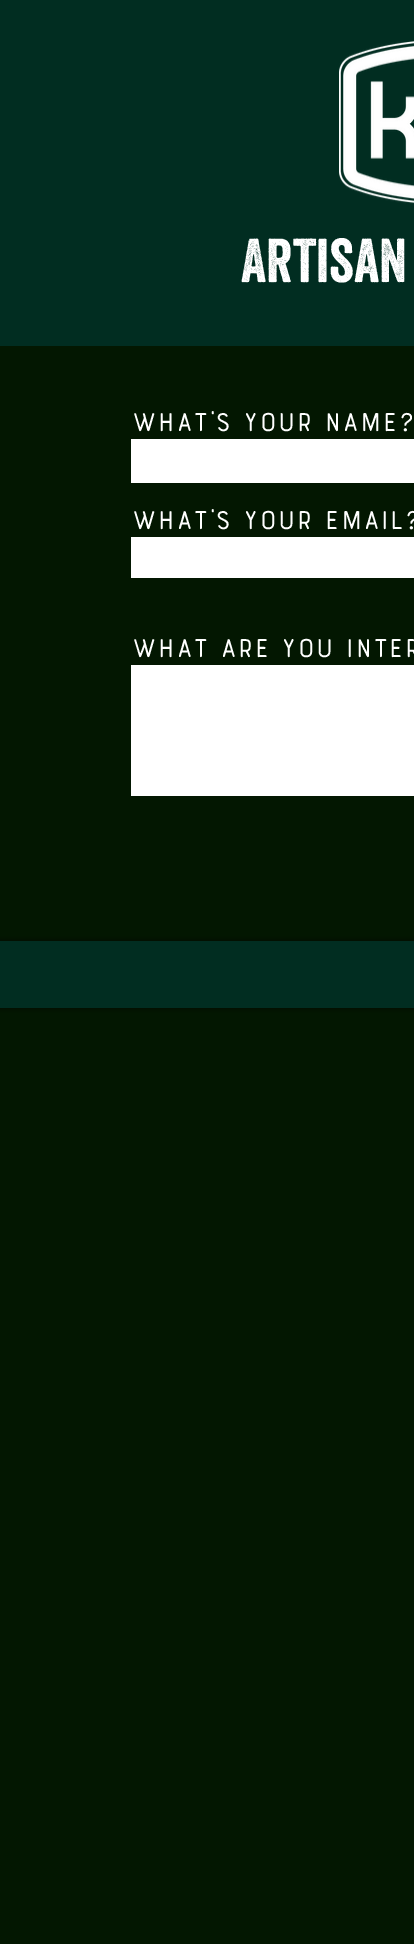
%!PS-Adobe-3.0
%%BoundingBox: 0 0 414 1944
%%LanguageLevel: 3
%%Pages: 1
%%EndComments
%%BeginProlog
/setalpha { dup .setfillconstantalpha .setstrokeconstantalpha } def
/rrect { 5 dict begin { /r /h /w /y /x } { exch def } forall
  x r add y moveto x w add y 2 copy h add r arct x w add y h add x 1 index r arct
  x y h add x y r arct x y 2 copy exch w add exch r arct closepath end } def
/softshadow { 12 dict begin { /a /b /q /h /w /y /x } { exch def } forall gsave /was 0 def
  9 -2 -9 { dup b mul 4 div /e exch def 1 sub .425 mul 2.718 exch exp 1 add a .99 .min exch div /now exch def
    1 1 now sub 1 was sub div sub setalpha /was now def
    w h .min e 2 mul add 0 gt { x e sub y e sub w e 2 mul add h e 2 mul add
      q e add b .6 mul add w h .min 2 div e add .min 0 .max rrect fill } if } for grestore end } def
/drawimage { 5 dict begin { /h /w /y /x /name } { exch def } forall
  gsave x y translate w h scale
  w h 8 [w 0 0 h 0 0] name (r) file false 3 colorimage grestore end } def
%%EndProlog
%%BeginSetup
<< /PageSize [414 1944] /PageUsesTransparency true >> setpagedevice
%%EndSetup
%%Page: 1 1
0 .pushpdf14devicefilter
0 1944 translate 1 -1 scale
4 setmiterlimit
0.012 0.09 0.004 setrgbcolor
0 0 414 1944 rectfill
0.004 0.176 0.129 setrgbcolor
0 0 414 346 rectfill
(images/1.raw) 339 41 75 163 drawimage
1 setgray
131 439 283 44 rectfill
131 537 283 41 rectfill
131 665 283 131 rectfill
0 setgray
0 941 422 67 0 2.5 0.7 softshadow
0.004 0.176 0.129 setrgbcolor
0 941 414 67 rectfill
/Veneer-Regular [60 0 0 -60 0 0] selectfont
1 setgray
241 282 moveto (Artisan) show
/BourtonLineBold-Bold [30 0 0 -30 0 0] selectfont
131 432 moveto (What's your name?) show
131 530 moveto (What's your email?) show
131 658 moveto (What are you inter) show
.poppdf14devicefilter showpage
%%EOF
